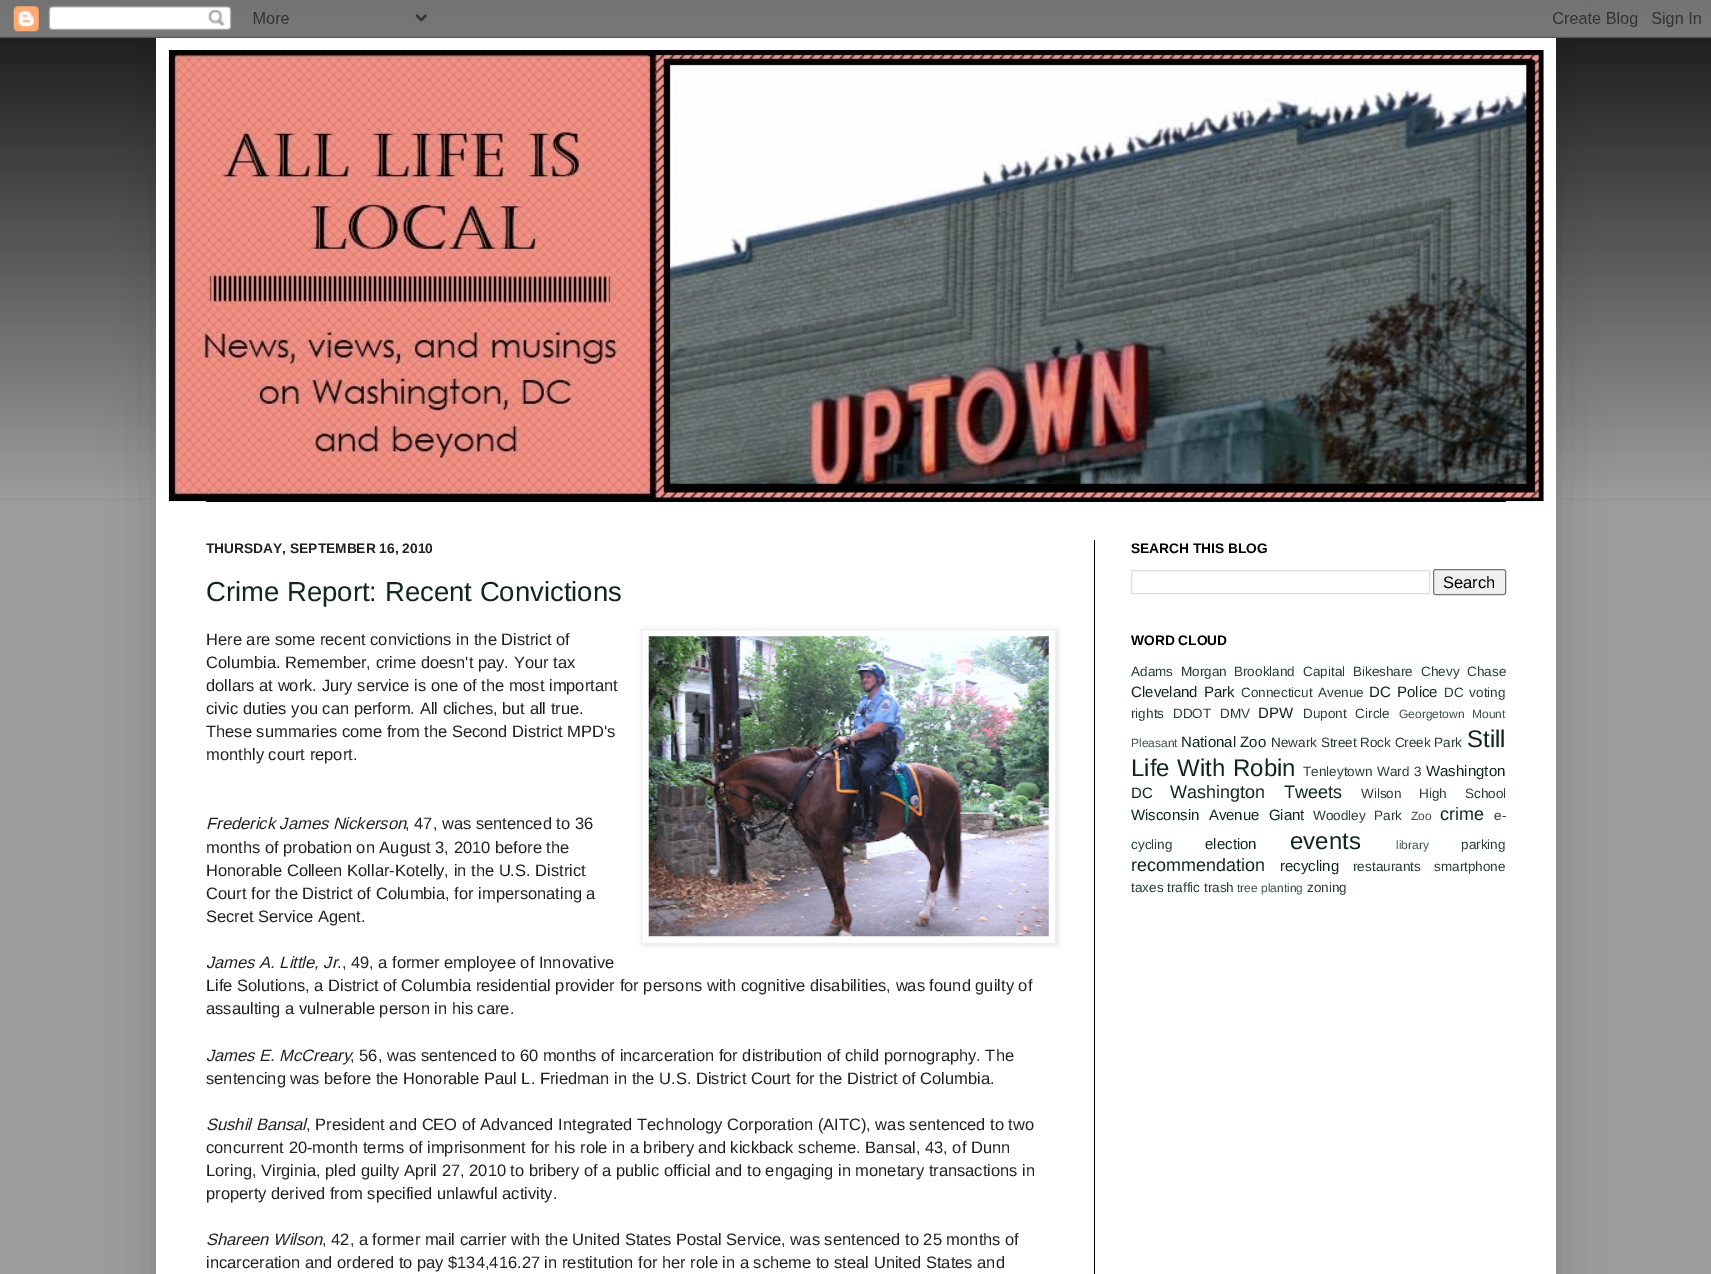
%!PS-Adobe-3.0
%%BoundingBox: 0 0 1711 1274
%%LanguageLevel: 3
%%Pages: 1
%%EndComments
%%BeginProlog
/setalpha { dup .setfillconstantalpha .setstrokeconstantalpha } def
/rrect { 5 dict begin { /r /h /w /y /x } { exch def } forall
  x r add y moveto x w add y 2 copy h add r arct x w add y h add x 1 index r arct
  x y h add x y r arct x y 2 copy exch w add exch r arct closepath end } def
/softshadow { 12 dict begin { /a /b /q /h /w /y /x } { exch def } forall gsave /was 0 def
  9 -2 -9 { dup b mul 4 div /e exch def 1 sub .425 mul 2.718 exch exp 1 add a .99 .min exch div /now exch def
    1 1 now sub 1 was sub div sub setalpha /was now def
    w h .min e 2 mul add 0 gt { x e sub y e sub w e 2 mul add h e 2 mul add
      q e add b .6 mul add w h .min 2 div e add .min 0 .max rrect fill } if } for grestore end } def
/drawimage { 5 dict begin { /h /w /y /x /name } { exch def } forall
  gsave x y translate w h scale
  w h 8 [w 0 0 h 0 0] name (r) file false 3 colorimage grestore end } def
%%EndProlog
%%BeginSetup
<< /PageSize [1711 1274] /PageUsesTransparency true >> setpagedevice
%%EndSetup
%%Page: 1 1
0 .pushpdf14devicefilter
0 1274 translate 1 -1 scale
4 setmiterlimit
0.612 setgray
0 0 1711 1274 rectfill
0.031 setgray
0 0 1711 500 rectfill
(images/1.raw) 0 0 1711 500 drawimage
0 setgray
156 38 1400 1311 0 25 0.15 softshadow
(images/2.raw) 0 0 1711 38 drawimage
1 setgray
156 38 1400 1236 rectfill
(images/3.raw) 168 50 1376 452 drawimage
0.016 0.004 0.004 setrgbcolor
206 501 1300 1 rectfill
0 setgray
1094 540 1 734 rectfill
643 630 415 315 0 3 0.1 softshadow
1 setgray
newpath 641.5 629.5 moveto 1055.5 629.5 lineto 1055.5 943.5 lineto 641.5 943.5 lineto closepath gsave fill grestore
0.933 setgray
stroke
(images/4.raw) 648 636 401 301 drawimage
0.867 setgray
1131.5 570.5 298 23 rectstroke
0.937 setgray
1433.5 569.5 72 25 2 rrect gsave fill grestore
0.463 setgray
stroke
/Arimo-Bold [13.75 0 0 -13.75 0 0] selectfont
0.133 setgray
206 553 moveto (THURSDAY, SEPTEMBER 16, 2010) show
/Arimo-Regular [27.5 0 0 -27.5 0 0] selectfont
0.063 0.149 0.106 setrgbcolor
206 601 moveto (Crime Report: Recent Convictions) show
/Arimo-Regular [16.5 0 0 -16.5 0 0] selectfont
0.133 setgray
206 645 moveto (Here are some recent convictions in the District of) show
206 668 moveto (Columbia. Remember, crime doesn't pay. Your tax) show
206 691 moveto (dollars at work. Jury service is one of the most important) show
206 714 moveto (civic duties you can perform. All cliches, but all true.) show
206 737 moveto (These summaries come from the Second District MPD's) show
206 760 moveto (monthly court report.) show
/Arimo-Italic [16.5 0 0 -16.5 0 0] selectfont
206 829 moveto (Frederick James Nickerson) show
/Arimo-Regular [16.5 0 0 -16.5 0 0] selectfont
405 829 moveto (, 47, was sentenced to 36) show
206 853 moveto (months of probation on August 3, 2010 before the) show
206 876 moveto (Honorable Colleen Kollar-Kotelly, in the U.S. District) show
206 899 moveto (Court for the District of Columbia, for impersonating a) show
206 922 moveto (Secret Service Agent.) show
/Arimo-Italic [16.5 0 0 -16.5 0 0] selectfont
206 968 moveto (James A. Little, Jr) show
/Arimo-Regular [16.5 0 0 -16.5 0 0] selectfont
337 968 moveto (., 49, a former employee of Innovative) show
206 991 moveto (Life Solutions, a District of Columbia residential provider for persons with cognitive disabilities, was found guilty of) show
206 1014 moveto (assaulting a vulnerable person in his care.) show
/Arimo-Italic [16.5 0 0 -16.5 0 0] selectfont
206 1061 moveto (James E. McCreary) show
/Arimo-Regular [16.5 0 0 -16.5 0 0] selectfont
350 1061 moveto (, 56, was sentenced to 60 months of incarceration for distribution of child pornography. The) show
206 1084 moveto (sentencing was before the Honorable Paul L. Friedman in the U.S. District Court for the District of Columbia.) show
/Arimo-Italic [16.5 0 0 -16.5 0 0] selectfont
206 1130 moveto (Sushil Bansal) show
/Arimo-Regular [16.5 0 0 -16.5 0 0] selectfont
306 1130 moveto (, President and CEO of Advanced Integrated Technology Corporation \(AITC\), was sentenced to two) show
206 1153 moveto (concurrent 20-month terms of imprisonment for his role in a bribery and kickback scheme. Bansal, 43, of Dunn) show
206 1176 moveto (Loring, Virginia, pled guilty April 27, 2010 to bribery of a public official and to engaging in monetary transactions in) show
206 1199 moveto (property derived from specified unlawful activity.) show
/Arimo-Italic [16.5 0 0 -16.5 0 0] selectfont
206 1245 moveto (Shareen Wilson) show
/Arimo-Regular [16.5 0 0 -16.5 0 0] selectfont
322 1245 moveto (, 42, a former mail carrier with the United States Postal Service, was sentenced to 25 months of) show
206 1268 moveto (incarceration and ordered to pay $134,416.27 in restitution for her role in a scheme to steal United States and) show
/Arimo-Bold [13.75 0 0 -13.75 0 0] selectfont
0 setgray
1131 553 moveto (SEARCH THIS BLOG) show
/LiberationSans-Regular [16.5 0 0 -16.5 0 0] selectfont
1443 588 moveto (Search) show
/Arimo-Bold [13.75 0 0 -13.75 0 0] selectfont
1131 645 moveto (WORD CLOUD) show
/Arimo-Regular [13.5 0 0 -13.5 0 0] selectfont
0.157 0.235 0.196 setrgbcolor
1131 676 moveto 4 0 32 (Adams Morgan) widthshow
1234 676 moveto (Brookland) show
1303 676 moveto 4 0 32 (Capital Bikeshare) widthshow
1421 676 moveto 4 0 32 (Chevy Chase) widthshow
/Arimo-Regular [15 0 0 -15 0 0] selectfont
0.063 0.149 0.106 setrgbcolor
1131 697 moveto 2 0 32 (Cleveland Park) widthshow
/Arimo-Regular [13.5 0 0 -13.5 0 0] selectfont
0.157 0.235 0.196 setrgbcolor
1241 697 moveto 2 0 32 (Connecticut Avenue) widthshow
/Arimo-Regular [15 0 0 -15 0 0] selectfont
0.063 0.149 0.106 setrgbcolor
1369 697 moveto 2 0 32 (DC Police) widthshow
/Arimo-Regular [13.5 0 0 -13.5 0 0] selectfont
0.157 0.235 0.196 setrgbcolor
1444 697 moveto 2 0 32 (DC voting) widthshow
1131 718 moveto (rights) show
1173 718 moveto (DDOT) show
1220 718 moveto (DMV) show
/Arimo-Regular [15 0 0 -15 0 0] selectfont
0.063 0.149 0.106 setrgbcolor
1258 718 moveto (DPW) show
/Arimo-Regular [13.5 0 0 -13.5 0 0] selectfont
0.157 0.235 0.196 setrgbcolor
1303 718 moveto 5 0 32 (Dupont Circle) widthshow
/Arimo-Regular [12 0 0 -12 0 0] selectfont
0.251 0.318 0.286 setrgbcolor
1399 718 moveto (Georgetown) show
1472 718 moveto (Mount) show
1131 747 moveto (Pleasant) show
/Arimo-Regular [15 0 0 -15 0 0] selectfont
0.063 0.149 0.106 setrgbcolor
1181 747 moveto (National Zoo) show
/Arimo-Regular [13.5 0 0 -13.5 0 0] selectfont
0.157 0.235 0.196 setrgbcolor
1271 747 moveto (Newark Street) show
1360 747 moveto (Rock Creek Park) show
/Arimo-Regular [24 0 0 -24 0 0] selectfont
0.063 0.149 0.106 setrgbcolor
1467 747 moveto (Still) show
1131 776 moveto 1 0 32 (Life With Robin) widthshow
/Arimo-Regular [13.5 0 0 -13.5 0 0] selectfont
0.157 0.235 0.196 setrgbcolor
1303 776 moveto (Tenleytown) show
1377 776 moveto 1 0 32 (Ward 3) widthshow
/Arimo-Regular [15 0 0 -15 0 0] selectfont
0.063 0.149 0.106 setrgbcolor
1426 776 moveto (Washington) show
1131 798 moveto (DC) show
/Arimo-Regular [18 0 0 -18 0 0] selectfont
1170 798 moveto 14 0 32 (Washington Tweets) widthshow
/Arimo-Regular [13.5 0 0 -13.5 0 0] selectfont
0.157 0.235 0.196 setrgbcolor
1361 798 moveto 14 0 32 (Wilson High School) widthshow
/Arimo-Regular [15 0 0 -15 0 0] selectfont
0.063 0.149 0.106 setrgbcolor
1131 820 moveto 5 0 32 (Wisconsin Avenue Giant) widthshow
/Arimo-Regular [13.5 0 0 -13.5 0 0] selectfont
0.157 0.235 0.196 setrgbcolor
1313 820 moveto 5 0 32 (Woodley Park) widthshow
/Arimo-Regular [12 0 0 -12 0 0] selectfont
0.251 0.318 0.286 setrgbcolor
1411 820 moveto (Zoo) show
/Arimo-Regular [18 0 0 -18 0 0] selectfont
0.063 0.149 0.106 setrgbcolor
1440 820 moveto (crime) show
/Arimo-Regular [13.5 0 0 -13.5 0 0] selectfont
0.157 0.235 0.196 setrgbcolor
1494 820 moveto (e-) show
1131 849 moveto (cycling) show
/Arimo-Regular [15 0 0 -15 0 0] selectfont
0.063 0.149 0.106 setrgbcolor
1205 849 moveto (election) show
/Arimo-Regular [24 0 0 -24 0 0] selectfont
1290 849 moveto (events) show
/Arimo-Regular [12 0 0 -12 0 0] selectfont
0.251 0.318 0.286 setrgbcolor
1396 849 moveto (library) show
/Arimo-Regular [13.5 0 0 -13.5 0 0] selectfont
0.157 0.235 0.196 setrgbcolor
1461 849 moveto (parking) show
/Arimo-Regular [18 0 0 -18 0 0] selectfont
0.063 0.149 0.106 setrgbcolor
1131 871 moveto (recommendation) show
/Arimo-Regular [15 0 0 -15 0 0] selectfont
1280 871 moveto (recycling) show
/Arimo-Regular [13.5 0 0 -13.5 0 0] selectfont
0.157 0.235 0.196 setrgbcolor
1353 871 moveto (restaurants) show
1434 871 moveto (smartphone) show
1131 892 moveto (taxes traffic trash) show
/Arimo-Regular [12 0 0 -12 0 0] selectfont
0.251 0.318 0.286 setrgbcolor
1237 892 moveto (tree planting) show
/Arimo-Regular [13.5 0 0 -13.5 0 0] selectfont
0.157 0.235 0.196 setrgbcolor
1307 892 moveto (zoning) show
.poppdf14devicefilter showpage
%%EOF
